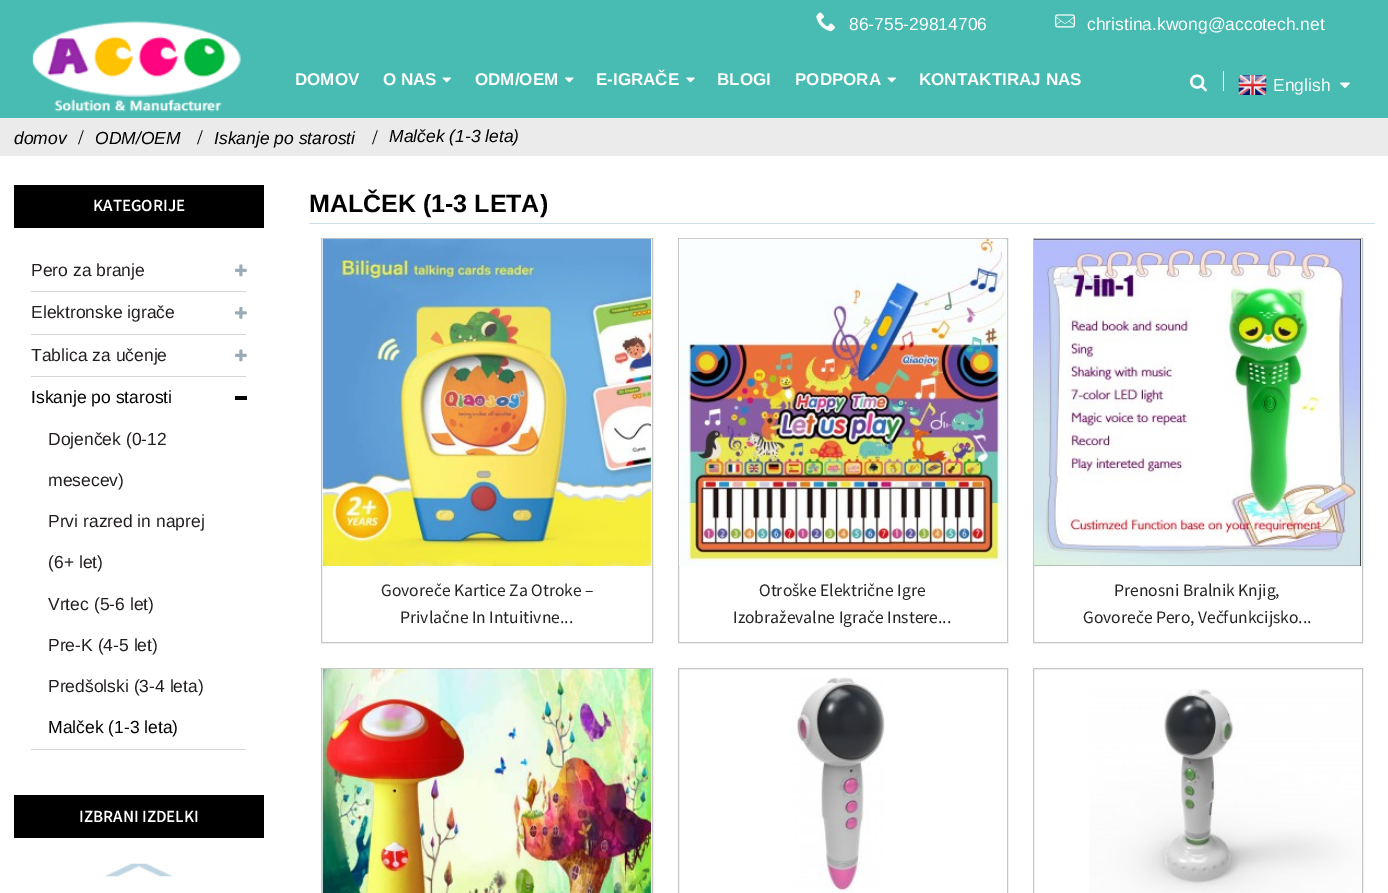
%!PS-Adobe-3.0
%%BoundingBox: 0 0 1388 893
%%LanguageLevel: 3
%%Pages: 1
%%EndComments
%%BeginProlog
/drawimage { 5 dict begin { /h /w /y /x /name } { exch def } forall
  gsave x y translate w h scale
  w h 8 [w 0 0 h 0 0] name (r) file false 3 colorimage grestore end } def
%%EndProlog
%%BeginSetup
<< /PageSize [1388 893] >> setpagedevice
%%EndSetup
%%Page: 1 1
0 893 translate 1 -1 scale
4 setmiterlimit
1 setgray
0 0 1388 893 rectfill
0.282 0.737 0.698 setrgbcolor
0 0 1388 118 rectfill
(images/1.raw) 816 12 19 20 drawimage
(images/2.raw) 1055 14 20 14 drawimage
(images/3.raw) 32 21 209 91 drawimage
(images/4.raw) 442 77 9 6 drawimage
(images/5.raw) 565 77 9 6 drawimage
(images/6.raw) 686 77 9 6 drawimage
(images/4.raw) 887 77 9 6 drawimage
(images/7.raw) 1190 74 17 18 drawimage
1 setgray
1223 71 1 20 rectfill
(images/8.raw) 1238 75 29 20 drawimage
(images/9.raw) 1340 82 10 6 drawimage
0.922 setgray
0 118 1388 38 rectfill
0 setgray
14 185 250 43 rectfill
0.839 setgray
31 291 215 1 rectfill
(images/10.raw) 235 264 12 13 drawimage
31 334 215 1 rectfill
(images/11.raw) 235 306 12 13 drawimage
31 376 215 1 rectfill
(images/10.raw) 235 349 12 13 drawimage
31 749 215 1 rectfill
0 setgray
235 396 12 4 rectfill
14 795 250 43 rectfill
(images/12.raw) 105 863 68 14 drawimage
0.8 0.871 0.91 setrgbcolor
309 223 1066 1 rectfill
0.776 setgray
321.5 238.5 331 404 rectstroke
(images/13.raw) 322 238 330 329 drawimage
678.5 238.5 329 404 rectstroke
(images/14.raw) 679 238 327 328 drawimage
1033.5 238.5 329 404 rectstroke
(images/15.raw) 1033 238 329 329 drawimage
321.5 668.5 331 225 rectstroke
(images/16.raw) 322 668 330 225 drawimage
678.5 668.5 329 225 rectstroke
(images/17.raw) 792 677 93 216 drawimage
1033.5 668.5 329 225 rectstroke
(images/18.raw) 1089 689 272 204 drawimage
/LiberationSans-Regular [17.5 0 0 -17.5 0 0] selectfont
1 setgray
849 30 moveto (86-755-29814706) show
1087 30 moveto (christina.kwong@accotech.net) show
/LiberationSans-Bold [17 0 0 -17 0 0] selectfont
295 85 moveto (DOMOV) show
383 85 moveto (O NAS) show
475 85 moveto (ODM/OEM) show
596 85 moveto (E-IGRAČE) show
717 85 moveto (BLOGI) show
795 85 moveto (PODPORA) show
919 85 moveto (KONTAKTIRAJ NAS) show
/LiberationSans-Regular [17.5 0 0 -17.5 0 0] selectfont
1273 91 moveto (English) show
/LiberationSans-Italic [17.5 0 0 -17.5 0 0] selectfont
0 setgray
14 144 moveto (domov) show
/LiberationSerif-Regular [21 0 0 -21 0 0] selectfont
78 144 moveto (/) show
/LiberationSans-Italic [17.5 0 0 -17.5 0 0] selectfont
95 144 moveto (ODM/OEM) show
/LiberationSerif-Regular [21 0 0 -21 0 0] selectfont
197 144 moveto (/) show
/LiberationSans-Italic [17.5 0 0 -17.5 0 0] selectfont
214 144 moveto (Iskanje po starosti) show
/LiberationSerif-Regular [21 0 0 -21 0 0] selectfont
372 144 moveto (/) show
/LiberationSans-Italic [17.5 0 0 -17.5 0 0] selectfont
389 142 moveto (Malček \(1-3 leta\)) show
/SourceSansPro-SemiBold [17 0 0 -17 0 0] selectfont
1 setgray
93 211 moveto (KATEGORIJE) show
/LiberationSans-Regular [17.5 0 0 -17.5 0 0] selectfont
0.137 0.122 0.125 setrgbcolor
31 276 moveto (Pero za branje) show
31 318 moveto (Elektronske igrače) show
31 361 moveto (Tablica za učenje) show
0 setgray
31 403 moveto (Iskanje po starosti) show
0.137 0.122 0.125 setrgbcolor
48 445 moveto (Dojenček \(0-12) show
48 486 moveto (mesecev\)) show
48 527 moveto (Prvi razred in naprej) show
48 568 moveto (\(6+ let\)) show
48 610 moveto (Vrtec \(5-6 let\)) show
48 651 moveto (Pre-K \(4-5 let\)) show
48 692 moveto (Predšolski \(3-4 leta\)) show
0 setgray
48 733 moveto (Malček \(1-3 leta\)) show
/SourceSansPro-SemiBold [17 0 0 -17 0 0] selectfont
1 setgray
79 822 moveto (IZBRANI IZDELKI) show
/LiberationSans-Bold [25 0 0 -25 0 0] selectfont
0 setgray
309 212 moveto (MALČEK \(1-3 LETA\)) show
/SourceSansPro-Regular [17.5 0 0 -17.5 0 0] selectfont
0.145 setgray
381 596 moveto (Govoreče Kartice Za Otroke –) show
400 623 moveto (Privlačne In Intuitivne...) show
759 596 moveto (Otroške Električne Igre) show
733 623 moveto (Izobraževalne Igrače Instere...) show
1114 596 moveto (Prenosni Bralnik Knjig,) show
1083 623 moveto (Govoreče Pero, Večfunkcijsko...) show
showpage
%%EOF
